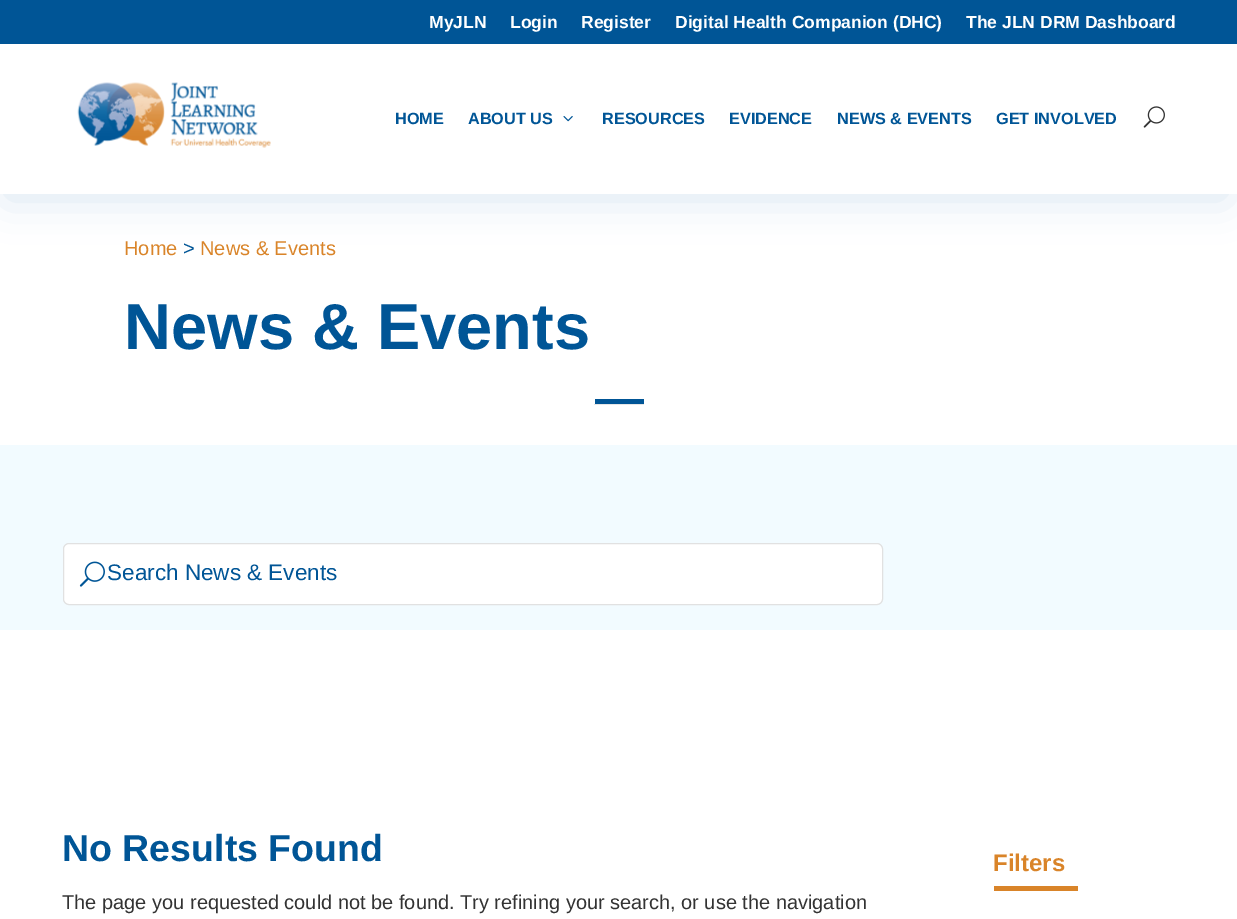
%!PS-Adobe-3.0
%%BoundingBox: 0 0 1237 919
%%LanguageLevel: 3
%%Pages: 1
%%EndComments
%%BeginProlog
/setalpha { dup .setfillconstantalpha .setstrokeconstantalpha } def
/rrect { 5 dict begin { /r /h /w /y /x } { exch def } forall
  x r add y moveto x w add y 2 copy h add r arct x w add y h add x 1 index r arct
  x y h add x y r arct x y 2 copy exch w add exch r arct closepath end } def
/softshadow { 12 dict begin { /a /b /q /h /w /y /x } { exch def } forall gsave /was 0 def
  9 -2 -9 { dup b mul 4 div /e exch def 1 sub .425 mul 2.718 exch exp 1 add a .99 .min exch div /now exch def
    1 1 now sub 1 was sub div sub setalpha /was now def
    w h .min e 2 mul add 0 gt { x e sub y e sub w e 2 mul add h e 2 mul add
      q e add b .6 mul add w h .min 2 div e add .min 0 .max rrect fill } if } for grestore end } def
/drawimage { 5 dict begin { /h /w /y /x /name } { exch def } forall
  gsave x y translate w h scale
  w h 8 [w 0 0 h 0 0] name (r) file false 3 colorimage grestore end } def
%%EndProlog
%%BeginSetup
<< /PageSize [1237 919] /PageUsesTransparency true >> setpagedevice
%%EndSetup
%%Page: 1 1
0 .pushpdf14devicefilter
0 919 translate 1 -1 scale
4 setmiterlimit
1 setgray
0 0 1237 919 rectfill
0 0.333 0.588 setrgbcolor
6 65 1220 133 0 21 0.15 softshadow
0 0 1237 44 rectfill
1 setgray
0 44 1237 150 rectfill
(images/1.raw) 77 82 194 66 drawimage
(images/2.raw) 563 116 10 6 drawimage
(images/3.raw) 1143 106 22 22 drawimage
0 0.333 0.588 setrgbcolor
595 399 49 5 rectfill
0.902 setgray
594 404 50 1 rectfill
0.949 0.984 1 setrgbcolor
0 445 1237 185 rectfill
1 setgray
63.5 543.5 819 61 5.5 rrect gsave fill grestore
0.882 setgray
stroke
(images/4.raw) 79 561 26 26 drawimage
0.851 0.518 0.161 setrgbcolor
994 886 84 5 rectfill
/LiberationSans-Bold [17.5 0 0 -17.5 0 0] selectfont
1 setgray
429 28 moveto (MyJLN) show
510 28 moveto (Login) show
581 28 moveto (Register) show
675 28 moveto (Digital Health Companion \(DHC\)) show
966 28 moveto (The JLN DRM Dashboard) show
/LiberationSans-Bold [16.25 0 0 -16.25 0 0] selectfont
0 0.333 0.588 setrgbcolor
395 124 moveto (HOME) show
468 124 moveto (ABOUT US) show
602 124 moveto (RESOURCES) show
729 124 moveto (EVIDENCE) show
837 124 moveto (NEWS & EVENTS) show
996 124 moveto (GET INVOLVED) show
/LiberationSans-Regular [20 0 0 -20 0 0] selectfont
0.851 0.518 0.161 setrgbcolor
124 255 moveto (Home) show
0 0.333 0.588 setrgbcolor
183 255 moveto (>) show
0.851 0.518 0.161 setrgbcolor
200 255 moveto (News & Events) show
/LiberationSans-Bold [65 0 0 -65 0 0] selectfont
0 0.333 0.588 setrgbcolor
124 349 moveto (News & Events) show
/LiberationSans-Regular [22.5 0 0 -22.5 0 0] selectfont
107 580 moveto (Search News & Events) show
/LiberationSans-Bold [37.5 0 0 -37.5 0 0] selectfont
62 861 moveto (No Results Found) show
/LiberationSans-Regular [20 0 0 -20 0 0] selectfont
0.2 setgray
62 909 moveto (The page you requested could not be found. Try refining your search, or use the navigation) show
/LiberationSans-Bold [24 0 0 -24 0 0] selectfont
0.851 0.518 0.161 setrgbcolor
993 871 moveto (Filters) show
.poppdf14devicefilter showpage
%%EOF
